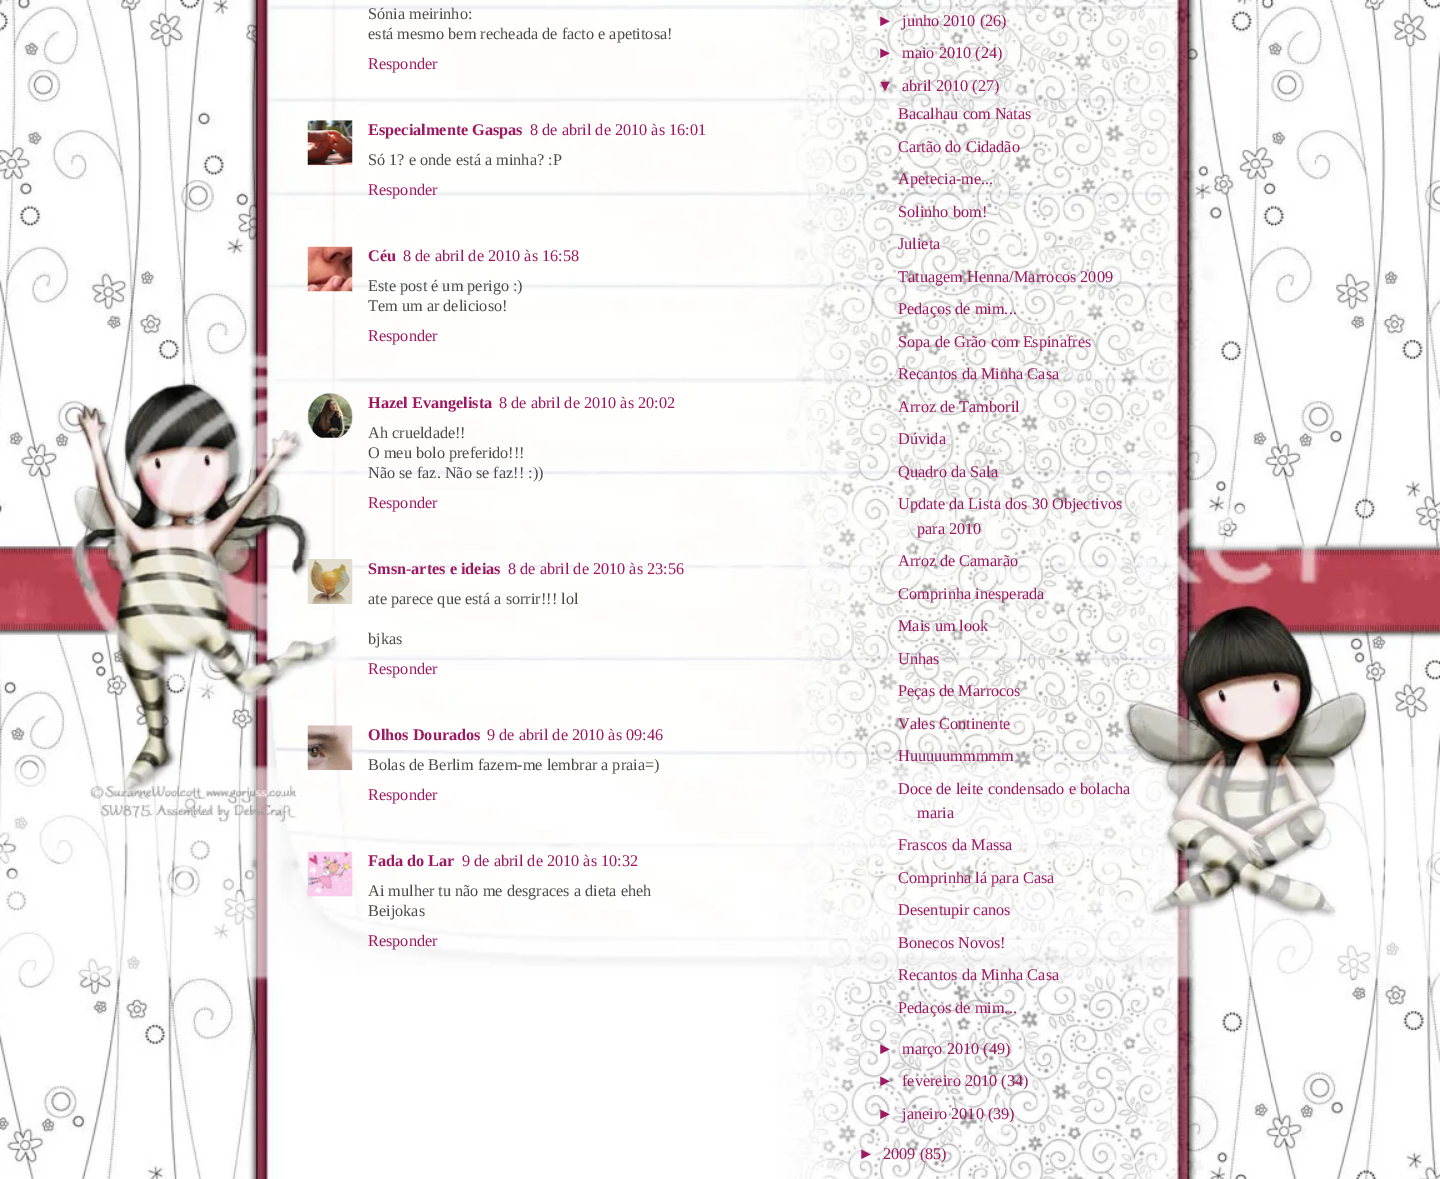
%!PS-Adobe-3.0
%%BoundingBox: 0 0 1440 1179
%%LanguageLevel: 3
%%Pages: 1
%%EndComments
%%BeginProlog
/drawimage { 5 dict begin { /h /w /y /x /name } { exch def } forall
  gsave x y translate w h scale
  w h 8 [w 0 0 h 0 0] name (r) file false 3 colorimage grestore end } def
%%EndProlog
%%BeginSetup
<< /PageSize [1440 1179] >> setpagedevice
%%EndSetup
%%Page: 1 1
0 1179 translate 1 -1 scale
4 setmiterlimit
1 setgray
0 0 1440 1179 rectfill
(images/1.raw) 0 0 1440 1179 drawimage
(images/2.raw) 307 120 46 46 drawimage
(images/3.raw) 307 246 46 46 drawimage
(images/4.raw) 307 392 46 46 drawimage
(images/5.raw) 307 559 46 45 drawimage
(images/6.raw) 307 725 46 46 drawimage
(images/7.raw) 307 851 46 46 drawimage
/LiberationSerif-Regular [16.25 0 0 -16.25 0 0] selectfont
0.298 setgray
368 19 moveto (Sónia meirinho:) show
368 39 moveto (está mesmo bem recheada de facto e apetitosa!) show
0.616 0.098 0.38 setrgbcolor
368 69 moveto (Responder) show
/LiberationSerif-Bold [16.25 0 0 -16.25 0 0] selectfont
368 135 moveto (Especialmente Gaspas) show
/LiberationSerif-Regular [16.25 0 0 -16.25 0 0] selectfont
530 135 moveto (8 de abril de 2010 às 16:01) show
0.298 setgray
368 165 moveto (Só 1? e onde está a minha? :P) show
0.616 0.098 0.38 setrgbcolor
368 195 moveto (Responder) show
/LiberationSerif-Bold [16.25 0 0 -16.25 0 0] selectfont
368 261 moveto (Céu) show
/LiberationSerif-Regular [16.25 0 0 -16.25 0 0] selectfont
403 261 moveto (8 de abril de 2010 às 16:58) show
0.298 setgray
368 291 moveto (Este post é um perigo :\)) show
368 311 moveto (Tem um ar delicioso!) show
0.616 0.098 0.38 setrgbcolor
368 341 moveto (Responder) show
/LiberationSerif-Bold [16.25 0 0 -16.25 0 0] selectfont
368 408 moveto (Hazel Evangelista) show
/LiberationSerif-Regular [16.25 0 0 -16.25 0 0] selectfont
499 408 moveto (8 de abril de 2010 às 20:02) show
0.298 setgray
368 438 moveto (Ah crueldade!!) show
368 458 moveto (O meu bolo preferido!!!) show
368 478 moveto (Não se faz. Não se faz!! :\)\)) show
0.616 0.098 0.38 setrgbcolor
368 508 moveto (Responder) show
/LiberationSerif-Bold [16.25 0 0 -16.25 0 0] selectfont
368 574 moveto (Smsn-artes e ideias) show
/LiberationSerif-Regular [16.25 0 0 -16.25 0 0] selectfont
508 574 moveto (8 de abril de 2010 às 23:56) show
0.298 setgray
368 604 moveto (ate parece que está a sorrir!!! lol) show
368 644 moveto (bjkas) show
0.616 0.098 0.38 setrgbcolor
368 674 moveto (Responder) show
/LiberationSerif-Bold [16.25 0 0 -16.25 0 0] selectfont
368 740 moveto (Olhos Dourados) show
/LiberationSerif-Regular [16.25 0 0 -16.25 0 0] selectfont
487 740 moveto (9 de abril de 2010 às 09:46) show
0.298 setgray
368 770 moveto (Bolas de Berlim fazem-me lembrar a praia=\)) show
0.616 0.098 0.38 setrgbcolor
368 800 moveto (Responder) show
/LiberationSerif-Bold [16.25 0 0 -16.25 0 0] selectfont
368 866 moveto (Fada do Lar) show
/LiberationSerif-Regular [16.25 0 0 -16.25 0 0] selectfont
462 866 moveto (9 de abril de 2010 às 10:32) show
0.298 setgray
368 896 moveto (Ai mulher tu não me desgraces a dieta eheh) show
368 916 moveto (Beijokas) show
0.616 0.098 0.38 setrgbcolor
368 946 moveto (Responder) show
/LiberationSans-Regular [16.25 0 0 -16.25 0 0] selectfont
877 26 moveto (►) show
/LiberationSerif-Regular [16.25 0 0 -16.25 0 0] selectfont
902 26 moveto (junho 2010 \(26\)) show
/LiberationSans-Regular [16.25 0 0 -16.25 0 0] selectfont
877 58 moveto (►) show
/LiberationSerif-Regular [16.25 0 0 -16.25 0 0] selectfont
902 58 moveto (maio 2010 \(24\)) show
/LiberationSans-Regular [16.25 0 0 -16.25 0 0] selectfont
877 91 moveto (▼) show
/LiberationSerif-Regular [16.25 0 0 -16.25 0 0] selectfont
902 91 moveto (abril 2010 \(27\)) show
898 119 moveto (Bacalhau com Natas) show
898 152 moveto (Cartão do Cidadão) show
898 184 moveto (Apetecia-me...) show
898 217 moveto (Solinho bom!) show
898 249 moveto (Julieta) show
898 282 moveto (Tatuagem Henna/Marrocos 2009) show
898 314 moveto (Pedaços de mim...) show
898 347 moveto (Sopa de Grão com Espinafres) show
898 379 moveto (Recantos da Minha Casa) show
898 412 moveto (Arroz de Tamboril) show
898 444 moveto (Dúvida) show
898 477 moveto (Quadro da Sala) show
898 509 moveto (Update da Lista dos 30 Objectivos) show
917 534 moveto (para 2010) show
898 566 moveto (Arroz de Camarão) show
898 599 moveto (Comprinha inesperada) show
898 631 moveto (Mais um look) show
898 664 moveto (Unhas) show
898 696 moveto (Peças de Marrocos) show
898 729 moveto (Vales Continente) show
898 761 moveto (Huuuuummmmm) show
898 794 moveto (Doce de leite condensado e bolacha) show
917 818 moveto (maria) show
898 850 moveto (Frascos da Massa) show
898 883 moveto (Comprinha lá para Casa) show
898 915 moveto (Desentupir canos) show
898 948 moveto (Bonecos Novos!) show
898 980 moveto (Recantos da Minha Casa) show
898 1013 moveto (Pedaços de mim...) show
/LiberationSans-Regular [16.25 0 0 -16.25 0 0] selectfont
877 1054 moveto (►) show
/LiberationSerif-Regular [16.25 0 0 -16.25 0 0] selectfont
902 1054 moveto (março 2010 \(49\)) show
/LiberationSans-Regular [16.25 0 0 -16.25 0 0] selectfont
877 1086 moveto (►) show
/LiberationSerif-Regular [16.25 0 0 -16.25 0 0] selectfont
902 1086 moveto (fevereiro 2010 \(34\)) show
/LiberationSans-Regular [16.25 0 0 -16.25 0 0] selectfont
877 1119 moveto (►) show
/LiberationSerif-Regular [16.25 0 0 -16.25 0 0] selectfont
902 1119 moveto (janeiro 2010 \(39\)) show
/LiberationSans-Regular [16.25 0 0 -16.25 0 0] selectfont
858 1159 moveto (►) show
/LiberationSerif-Regular [16.25 0 0 -16.25 0 0] selectfont
883 1159 moveto (2009 \(85\)) show
showpage
%%EOF
